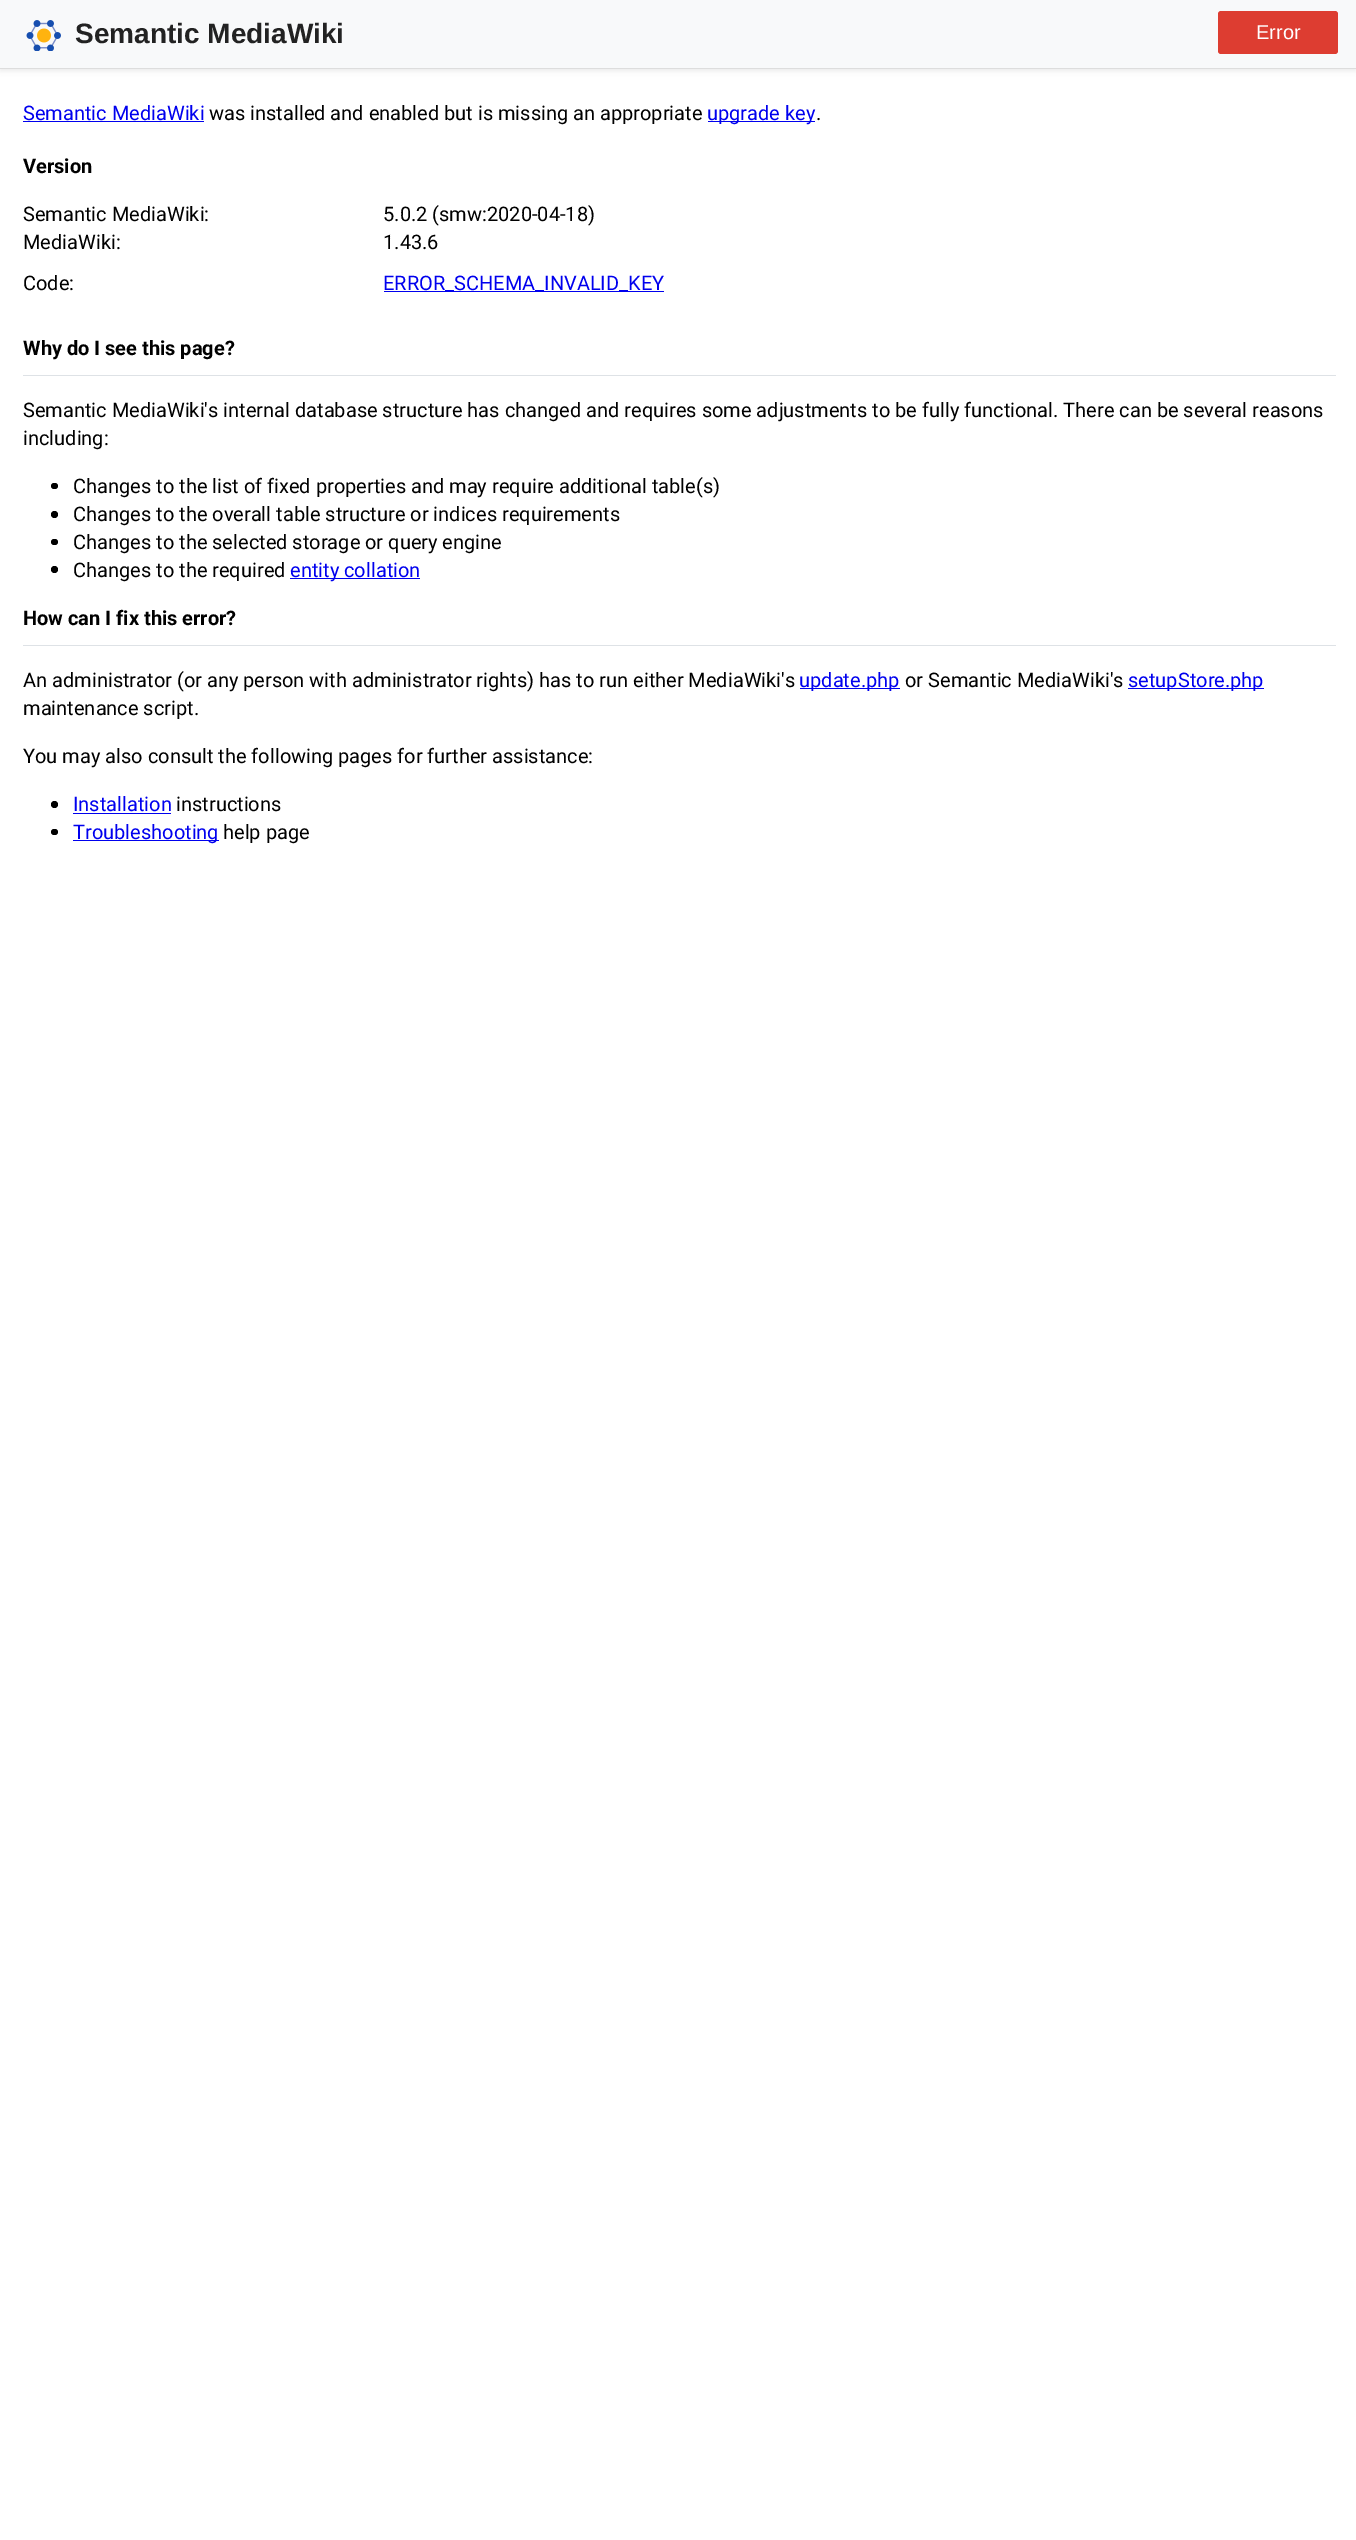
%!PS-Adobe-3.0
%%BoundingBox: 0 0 1356 2540
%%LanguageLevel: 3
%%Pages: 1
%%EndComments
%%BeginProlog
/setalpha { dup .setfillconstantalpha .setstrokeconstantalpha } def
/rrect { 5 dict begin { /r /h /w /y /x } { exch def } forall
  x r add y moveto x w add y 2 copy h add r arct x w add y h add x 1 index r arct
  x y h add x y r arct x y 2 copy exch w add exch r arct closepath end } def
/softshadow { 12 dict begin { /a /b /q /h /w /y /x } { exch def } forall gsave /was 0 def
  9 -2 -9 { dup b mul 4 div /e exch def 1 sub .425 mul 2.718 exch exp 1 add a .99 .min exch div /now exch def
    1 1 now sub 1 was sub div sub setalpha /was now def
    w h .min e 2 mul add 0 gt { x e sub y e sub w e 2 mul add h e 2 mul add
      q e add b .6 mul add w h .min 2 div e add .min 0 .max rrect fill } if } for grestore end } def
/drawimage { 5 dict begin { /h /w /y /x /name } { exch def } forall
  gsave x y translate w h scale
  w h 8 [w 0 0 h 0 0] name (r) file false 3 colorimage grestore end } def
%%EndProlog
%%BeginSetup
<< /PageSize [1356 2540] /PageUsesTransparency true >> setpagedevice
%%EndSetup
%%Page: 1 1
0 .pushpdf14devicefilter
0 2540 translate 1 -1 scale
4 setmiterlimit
1 setgray
0 0 1356 2540 rectfill
0 setgray
0 -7 1356 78 0 2.5 0.07 softshadow
0.973 0.976 0.98 setrgbcolor
0 0 1356 68 rectfill
0.867 setgray
0 68 1356 1 rectfill
(images/1.raw) 26 20 35 31 drawimage
0.867 0.239 0.192 setrgbcolor
1218 11 120 43 3 rrect fill
0 0 0.933 setrgbcolor
23 121 181 1 rectfill
708 121 107 1 rectfill
384 291 280 1 rectfill
0.871 0.886 0.902 setrgbcolor
23 375 1313 1 rectfill
0 setgray
51 483 7 6 3 rrect fill
newpath 54.5 514.5 3.5 0 360 arc closepath fill
51 539 7 6 3 rrect fill
newpath 54.5 569.5 3.5 0 360 arc closepath fill
0 0 0.933 setrgbcolor
290 578 130 1 rectfill
0.871 0.886 0.902 setrgbcolor
23 645 1313 1 rectfill
0 0 0.933 setrgbcolor
800 688 100 1 rectfill
1128 688 136 1 rectfill
0 setgray
newpath 54.5 804.5 3.5 0 360 arc closepath fill
0 0 0.933 setrgbcolor
73 813 98 1 rectfill
0 setgray
51 829 7 6 3 rrect fill
0 0 0.933 setrgbcolor
73 840 146 1 rectfill
/LiberationSans-Bold [28 0 0 -28 0 0] selectfont
0.133 setgray
75 43 moveto (Semantic MediaWiki) show
/LiberationSans-Regular [20 0 0 -20 0 0] selectfont
1 setgray
1256 39 moveto (Error) show
/Roboto-Regular [20 0 0 -20 0 0] selectfont
0 0 0.933 setrgbcolor
23 120 moveto (Semantic MediaWiki) show
0 setgray
209 120 moveto (was installed and enabled but is missing an appropriate) show
0 0 0.933 setrgbcolor
707 120 moveto (upgrade key) show
0 setgray
816 120 moveto (.) show
/Roboto-Bold [20 0 0 -20 0 0] selectfont
23 173 moveto (Version) show
/Roboto-Regular [20 0 0 -20 0 0] selectfont
23 221 moveto (Semantic MediaWiki:) show
383 221 moveto (5.0.2 \(smw:2020-04-18\)) show
23 249 moveto (MediaWiki:) show
383 249 moveto (1.43.6) show
23 290 moveto (Code:) show
0 0 0.933 setrgbcolor
383 290 moveto (ERROR_SCHEMA_INVALID_KEY) show
/Roboto-Bold [20 0 0 -20 0 0] selectfont
0 setgray
23 355 moveto (Why do I see this page?) show
/Roboto-Regular [20 0 0 -20 0 0] selectfont
23 417 moveto (Semantic MediaWiki's internal database structure has changed and requires some adjustments to be fully functional. There can be several reasons) show
23 445 moveto (including:) show
73 493 moveto (Changes to the list of fixed properties and may require additional table\(s\)) show
73 521 moveto (Changes to the overall table structure or indices requirements) show
73 549 moveto (Changes to the selected storage or query engine) show
73 577 moveto (Changes to the required) show
0 0 0.933 setrgbcolor
290 577 moveto (entity collation) show
/Roboto-Bold [20 0 0 -20 0 0] selectfont
0 setgray
23 625 moveto (How can I fix this error?) show
/Roboto-Regular [20 0 0 -20 0 0] selectfont
23 687 moveto (An administrator \(or any person with administrator rights\) has to run either MediaWiki's) show
0 0 0.933 setrgbcolor
799 687 moveto (update.php) show
0 setgray
905 687 moveto (or Semantic MediaWiki's) show
0 0 0.933 setrgbcolor
1128 687 moveto (setupStore.php) show
0 setgray
23 715 moveto (maintenance script.) show
23 763 moveto (You may also consult the following pages for further assistance:) show
0 0 0.933 setrgbcolor
73 811 moveto (Installation) show
0 setgray
176 811 moveto (instructions) show
0 0 0.933 setrgbcolor
73 839 moveto (Troubleshooting) show
0 setgray
223 839 moveto (help page) show
.poppdf14devicefilter showpage
%%EOF
